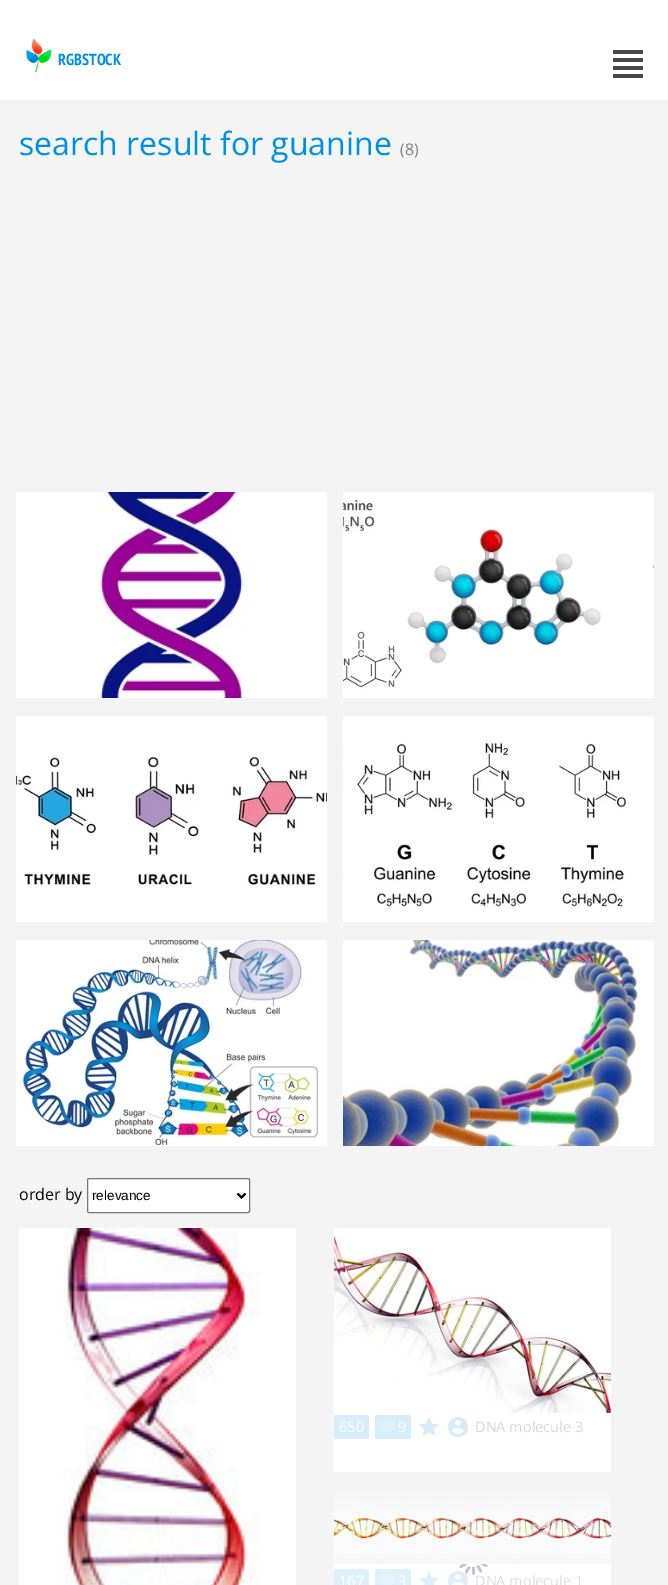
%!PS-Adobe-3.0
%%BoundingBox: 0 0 668 1585
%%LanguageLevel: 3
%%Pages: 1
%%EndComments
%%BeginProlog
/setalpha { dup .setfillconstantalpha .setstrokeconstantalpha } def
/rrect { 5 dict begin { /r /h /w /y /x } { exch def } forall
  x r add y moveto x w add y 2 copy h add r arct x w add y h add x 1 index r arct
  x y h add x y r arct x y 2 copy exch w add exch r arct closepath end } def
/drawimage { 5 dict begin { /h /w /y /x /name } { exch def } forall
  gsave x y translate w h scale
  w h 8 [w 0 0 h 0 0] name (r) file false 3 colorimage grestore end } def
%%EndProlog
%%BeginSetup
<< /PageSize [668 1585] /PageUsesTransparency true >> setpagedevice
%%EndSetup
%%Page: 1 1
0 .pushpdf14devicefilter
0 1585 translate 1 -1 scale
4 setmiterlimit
0.957 setgray
0 0 668 1585 rectfill
1 setgray
0 0 668 100 rectfill
0.278 setgray
613 50 30 4 1 rrect fill
613 58 30 4 1 rrect fill
613 66 30 4 1 rrect fill
613 74 30 4 1 rrect fill
(images/1.raw) 26 39 26 33 drawimage
(images/2.raw) 16 492 311 206 drawimage
(images/3.raw) 343 492 311 206 drawimage
(images/4.raw) 16 716 311 206 drawimage
(images/5.raw) 343 716 311 206 drawimage
(images/6.raw) 16 940 311 206 drawimage
(images/7.raw) 343 940 311 206 drawimage
1 setgray
87.5 1178.5 162 34 1.5 rrect gsave fill grestore
0.463 setgray
stroke
0 setgray
2 setlinewidth
newpath 237.5 1193.5 moveto 241.5 1197.5 lineto 245.5 1193.5 lineto stroke
1 setgray
19 1228 277 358 1 rrect fill
(images/8.raw) 63 1228 198 357 drawimage
334 1228 277 244 1 rrect fill
(images/9.raw) 334 1235 277 178 drawimage
0.16 setalpha
0.957 setgray
606 1410 5 3 rectfill
1 setalpha
0.843 0.929 0.98 setrgbcolor
334 1415 35 24 2 rrect fill
375 1415 36 24 2 rrect fill
(images/10.raw) 379 1420 16 14 drawimage
(images/11.raw) 419 1417 20 19 drawimage
(images/12.raw) 448 1417 20 20 drawimage
1 setgray
334 1492 277 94 1 rrect fill
(images/13.raw) 459 1564 29 11 drawimage
(images/14.raw) 334 1492 277 72 drawimage
0.13 setalpha
0.957 setgray
459 1564 29 11 rectfill
1 setalpha
0.871 0.945 0.984 setrgbcolor
334 1569 35 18 2 rrect fill
375 1569 36 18 2 rrect fill
(images/15.raw) 379 1574 16 11 drawimage
(images/16.raw) 419 1571 20 14 drawimage
(images/17.raw) 448 1571 20 14 drawimage
/PTSansNarrow-Bold [16 0 0 -16 0 0] selectfont
0 0.565 0.886 setrgbcolor
58 65 moveto (RGBSTOCK) show
/OpenSans-Regular [32 0 0 -32 0 0] selectfont
19 155 moveto (search result for guanine) show
/OpenSans-Regular [16 0 0 -16 0 0] selectfont
0.502 setgray
400 155 moveto (\(8\)) show
0 setgray
19 1200 moveto (order by) show
/LiberationSans-Regular [13.5 0 0 -13.5 0 0] selectfont
92 1200 moveto (relevance) show
/OpenSans-Regular [14.5 0 0 -14.5 0 0] selectfont
1 setgray
339 1432 moveto (650) show
398 1432 moveto (9) show
0.843 setgray
475 1432 moveto (DNA molecule 3) show
1 setgray
339 1586 moveto (167) show
398 1586 moveto (3) show
0.871 setgray
475 1586 moveto (DNA molecule 1) show
.poppdf14devicefilter showpage
%%EOF
